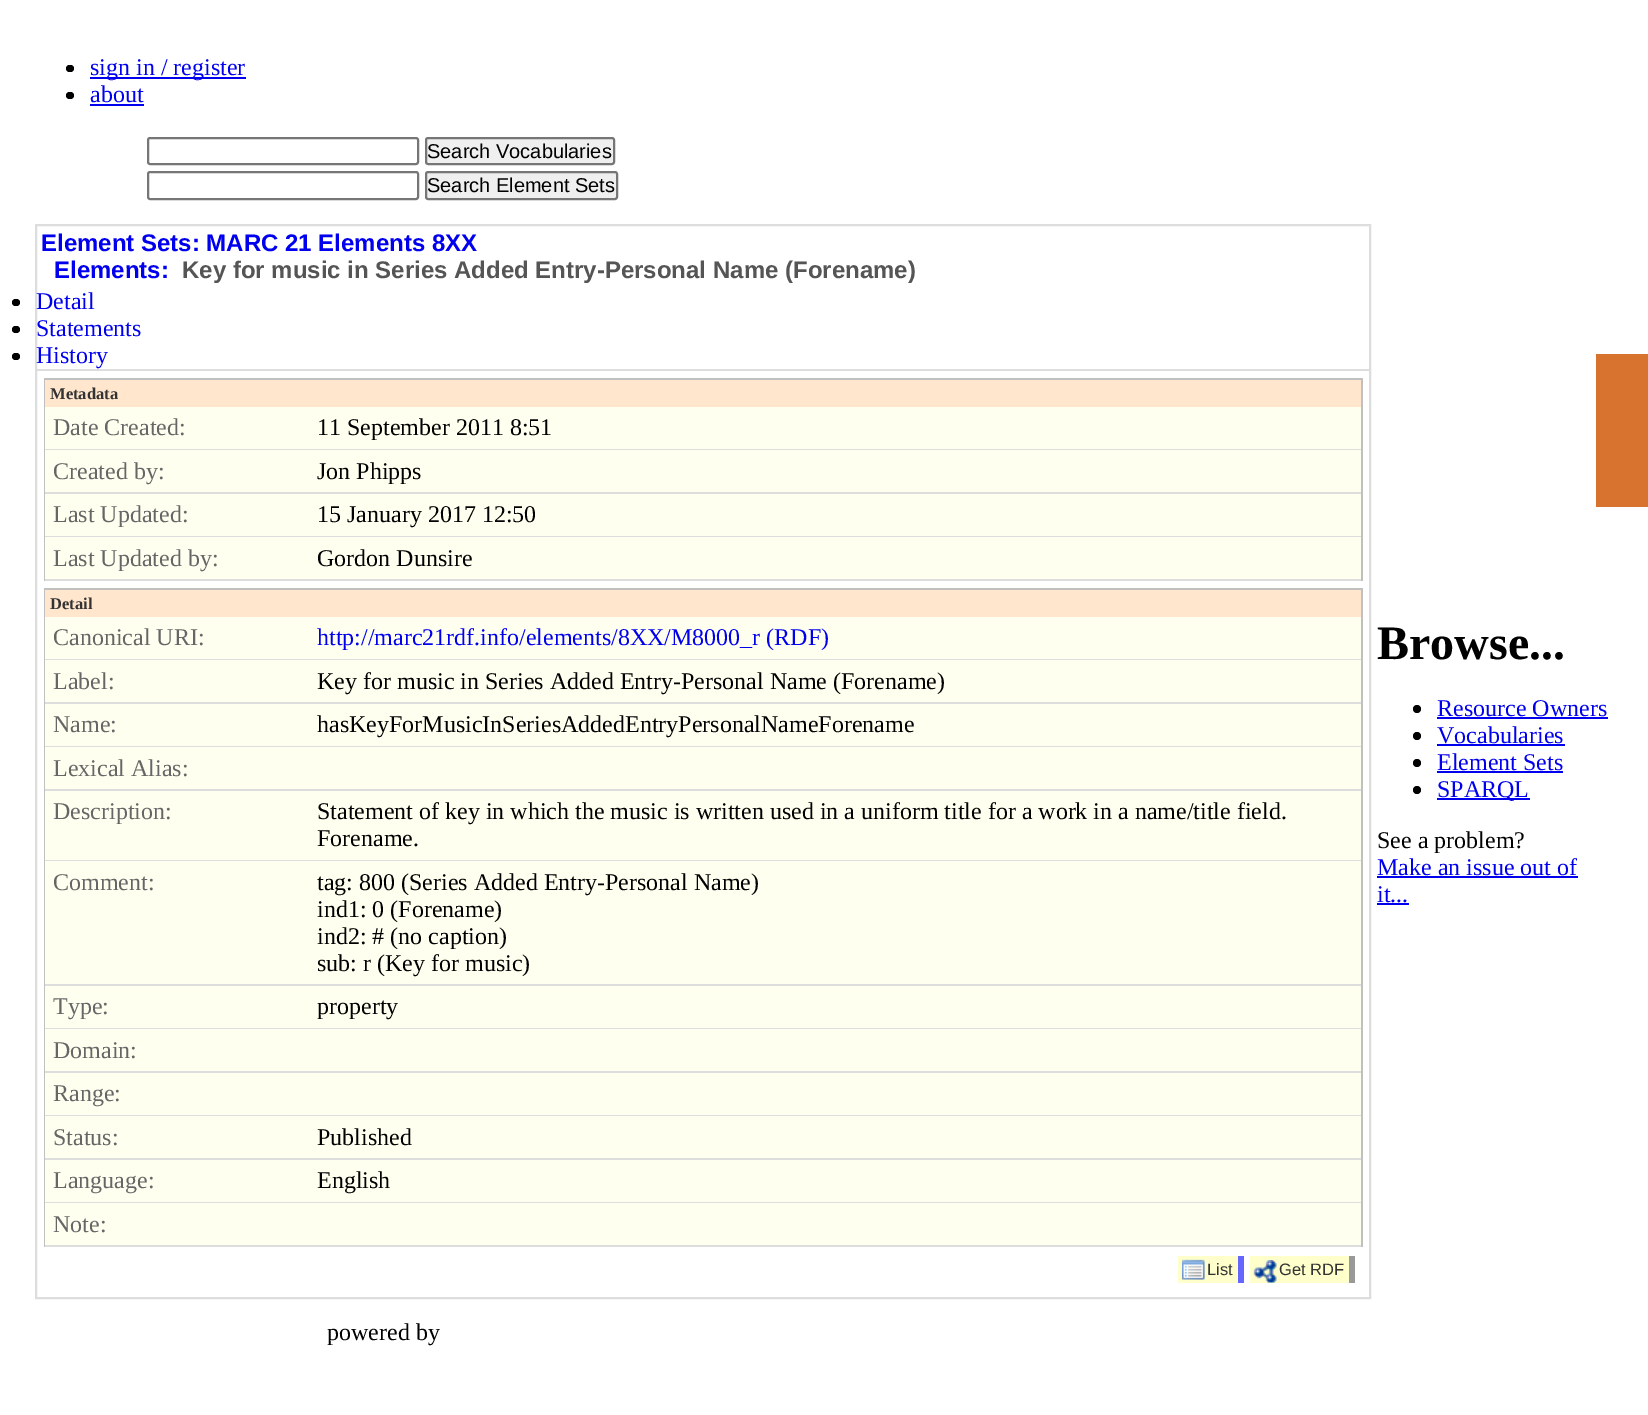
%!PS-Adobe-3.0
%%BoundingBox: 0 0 1648 1415
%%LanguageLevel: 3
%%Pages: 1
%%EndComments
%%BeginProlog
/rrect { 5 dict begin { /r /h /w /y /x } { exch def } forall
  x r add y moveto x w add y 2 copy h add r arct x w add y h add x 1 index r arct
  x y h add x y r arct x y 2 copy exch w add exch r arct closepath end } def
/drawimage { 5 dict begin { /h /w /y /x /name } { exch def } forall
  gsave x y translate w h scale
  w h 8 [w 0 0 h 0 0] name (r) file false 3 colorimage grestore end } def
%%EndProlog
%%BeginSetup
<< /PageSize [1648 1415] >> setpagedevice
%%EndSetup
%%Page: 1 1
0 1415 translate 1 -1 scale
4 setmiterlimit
1 setgray
0 0 1648 1415 rectfill
0 setgray
66 65 8 7 3.5 rrect fill
0 0 0.933 setrgbcolor
90 77 156 2 rectfill
0 setgray
66 92 8 7 3.5 rrect fill
0 0 0.933 setrgbcolor
90 104 54 2 rectfill
0.463 setgray
2 setlinewidth
148 138 270 26 2 rrect stroke
0.937 setgray
426 138 188 26 2 rrect gsave fill grestore
0.463 setgray
stroke
148 172 270 27 2 rrect stroke
0.937 setgray
426 172 191 27 2 rrect gsave fill grestore
0.463 setgray
stroke
0.867 setgray
36 225 1334 1073 rectstroke
0 setgray
12 299 8 7 3.5 rrect fill
12 326 8 7 3.5 rrect fill
12 353 8 7 3.5 rrect fill
0.867 setgray
36 369 1334 2 rectfill
0.753 setgray
44 378 1318 2 rectfill
1361 378 2 203 rectfill
44 378 2 203 rectfill
1 0.902 0.8 setrgbcolor
45 380 1316 27 rectfill
1 1 0.941 setrgbcolor
45 407 1316 42 rectfill
0.867 setgray
45 449 1316 1 rectfill
1 1 0.941 setrgbcolor
45 450 1316 42 rectfill
0.867 setgray
45 492 1316 2 rectfill
1 1 0.941 setrgbcolor
45 494 1316 42 rectfill
0.867 setgray
45 536 1316 1 rectfill
1 1 0.941 setrgbcolor
45 537 1316 42 rectfill
0.867 setgray
45 579 1316 2 rectfill
0.753 setgray
44 588 1318 2 rectfill
1361 588 2 659 rectfill
44 588 2 659 rectfill
1 0.902 0.8 setrgbcolor
45 590 1316 27 rectfill
1 1 0.941 setrgbcolor
45 617 1316 42 rectfill
0.867 setgray
45 659 1316 1 rectfill
1 1 0.941 setrgbcolor
45 660 1316 42 rectfill
0.867 setgray
45 702 1316 2 rectfill
1 1 0.941 setrgbcolor
45 704 1316 42 rectfill
0.867 setgray
45 746 1316 1 rectfill
1 1 0.941 setrgbcolor
45 747 1316 42 rectfill
0.867 setgray
45 789 1316 2 rectfill
1 1 0.941 setrgbcolor
45 791 1316 69 rectfill
0.867 setgray
45 860 1316 1 rectfill
1 1 0.941 setrgbcolor
45 861 1316 123 rectfill
0.867 setgray
45 984 1316 2 rectfill
1 1 0.941 setrgbcolor
45 986 1316 42 rectfill
0.867 setgray
45 1028 1316 1 rectfill
1 1 0.941 setrgbcolor
45 1029 1316 42 rectfill
0.867 setgray
45 1071 1316 2 rectfill
1 1 0.941 setrgbcolor
45 1073 1316 42 rectfill
0.867 setgray
45 1115 1316 1 rectfill
1 1 0.941 setrgbcolor
45 1116 1316 42 rectfill
0.867 setgray
45 1158 1316 2 rectfill
1 1 0.941 setrgbcolor
45 1160 1316 42 rectfill
0.867 setgray
45 1202 1316 1 rectfill
1 1 0.941 setrgbcolor
45 1203 1316 42 rectfill
0.867 setgray
45 1245 1316 2 rectfill
1 1 0.8 setrgbcolor
1178 1256 60 27 rectfill
(images/1.raw) 1182 1259 23 21 drawimage
0.4 0.4 1 setrgbcolor
1238 1256 6 27 rectfill
1 1 0.8 setrgbcolor
1250 1256 99 27 rectfill
(images/2.raw) 1253 1260 24 23 drawimage
0.6 setgray
1349 1256 6 27 rectfill
0 setgray
newpath 1417 709 4 0 360 arc closepath fill
0 0 0.933 setrgbcolor
1437 717 171 2 rectfill
0 setgray
newpath 1417 736 4 0 360 arc closepath fill
0 0 0.933 setrgbcolor
1437 744 128 2 rectfill
0 setgray
newpath 1417 763 4 0 360 arc closepath fill
0 0 0.933 setrgbcolor
1437 771 126 2 rectfill
0 setgray
newpath 1417 790 4 0 360 arc closepath fill
0 0 0.933 setrgbcolor
1437 798 93 2 rectfill
1377 876 201 2 rectfill
1377 903 32 2 rectfill
0.847 0.451 0.184 setrgbcolor
1596 354 52 153 rectfill
/LiberationSerif-Regular [24 0 0 -24 0 0] selectfont
0 0 0.933 setrgbcolor
90 75 moveto (sign in / register) show
90 102 moveto (about) show
/LiberationSans-Regular [20 0 0 -20 0 0] selectfont
0 setgray
427 158 moveto (Search Vocabularies) show
427 192 moveto (Search Element Sets) show
/LiberationSans-Bold [24 0 0 -24 0 0] selectfont
0 0 0.933 setrgbcolor
41 251 moveto (Element Sets: MARC 21 Elements 8XX) show
54 278 moveto (Elements:) show
0.333 setgray
182 278 moveto (Key for music in Series Added Entry-Personal Name \(Forename\)) show
/LiberationSerif-Regular [24 0 0 -24 0 0] selectfont
0 0 0.933 setrgbcolor
36 309 moveto (Detail) show
36 336 moveto (Statements) show
36 363 moveto (History) show
/LiberationSerif-Bold [16.5 0 0 -16.5 0 0] selectfont
0.2 setgray
50 399 moveto (Metadata) show
/LiberationSerif-Regular [24 0 0 -24 0 0] selectfont
0.4 setgray
53 435 moveto (Date Created:) show
0 setgray
317 435 moveto (11 September 2011 8:51) show
0.4 setgray
53 479 moveto (Created by:) show
0 setgray
317 479 moveto (Jon Phipps) show
0.4 setgray
53 522 moveto (Last Updated:) show
0 setgray
317 522 moveto (15 January 2017 12:50) show
0.4 setgray
53 566 moveto (Last Updated by:) show
0 setgray
317 566 moveto (Gordon Dunsire) show
/LiberationSerif-Bold [16.5 0 0 -16.5 0 0] selectfont
0.2 setgray
50 609 moveto (Detail) show
/LiberationSerif-Regular [24 0 0 -24 0 0] selectfont
0.4 setgray
53 645 moveto (Canonical URI:) show
0 0 0.933 setrgbcolor
317 645 moveto (http://marc21rdf.info/elements/8XX/M8000_r \(RDF\)) show
0.4 setgray
53 689 moveto (Label:) show
0 setgray
317 689 moveto (Key for music in Series Added Entry-Personal Name \(Forename\)) show
0.4 setgray
53 732 moveto (Name:) show
0 setgray
317 732 moveto (hasKeyForMusicInSeriesAddedEntryPersonalNameForename) show
0.4 setgray
53 776 moveto (Lexical Alias:) show
53 819 moveto (Description:) show
0 setgray
317 819 moveto (Statement of key in which the music is written used in a uniform title for a work in a name/title field.) show
317 846 moveto (Forename.) show
0.4 setgray
53 890 moveto (Comment:) show
0 setgray
317 890 moveto (tag: 800 \(Series Added Entry-Personal Name\)) show
317 917 moveto (ind1: 0 \(Forename\)) show
317 944 moveto (ind2: # \(no caption\)) show
317 971 moveto (sub: r \(Key for music\)) show
0.4 setgray
53 1014 moveto (Type:) show
0 setgray
317 1014 moveto (property) show
0.4 setgray
53 1058 moveto (Domain:) show
53 1101 moveto (Range:) show
53 1145 moveto (Status:) show
0 setgray
317 1145 moveto (Published) show
0.4 setgray
53 1188 moveto (Language:) show
0 setgray
317 1188 moveto (English) show
0.4 setgray
53 1232 moveto (Note:) show
/LiberationSans-Regular [16.5 0 0 -16.5 0 0] selectfont
0.2 setgray
1207 1275 moveto (List) show
1279 1275 moveto (Get RDF) show
/LiberationSerif-Bold [48 0 0 -48 0 0] selectfont
0 setgray
1377 659 moveto (Browse...) show
/LiberationSerif-Regular [24 0 0 -24 0 0] selectfont
0 0 0.933 setrgbcolor
1437 716 moveto (Resource Owners) show
1437 743 moveto (Vocabularies) show
1437 770 moveto (Element Sets) show
1437 797 moveto (SPARQL) show
0 setgray
1377 848 moveto (See a problem?) show
0 0 0.933 setrgbcolor
1377 875 moveto (Make an issue out of) show
1377 902 moveto (it...) show
0 setgray
327 1340 moveto (powered by) show
showpage
%%EOF
